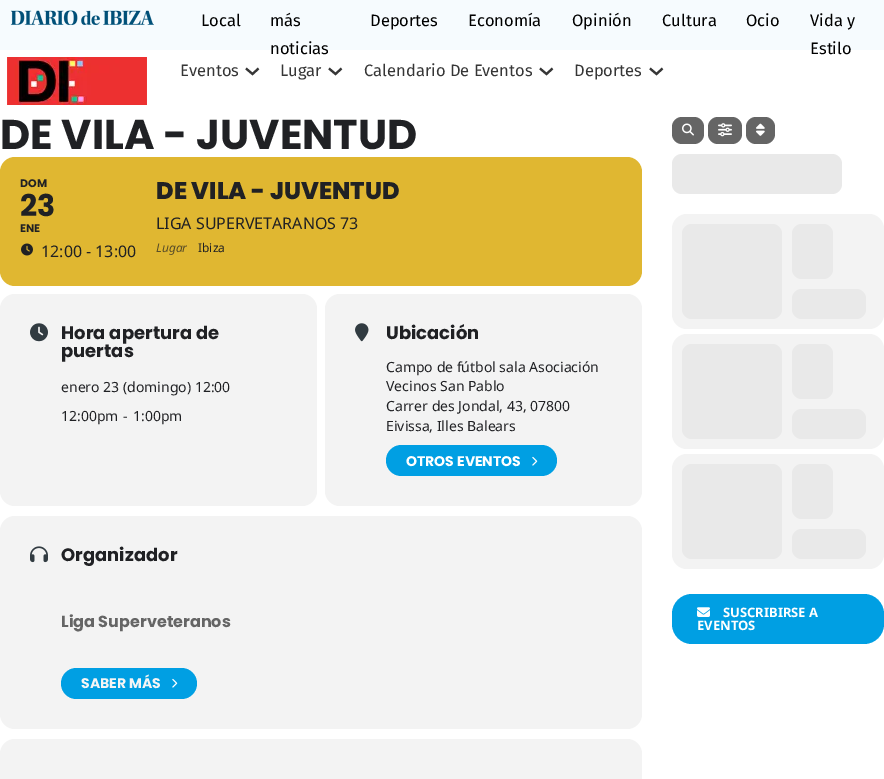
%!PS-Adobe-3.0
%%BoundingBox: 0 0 884 779
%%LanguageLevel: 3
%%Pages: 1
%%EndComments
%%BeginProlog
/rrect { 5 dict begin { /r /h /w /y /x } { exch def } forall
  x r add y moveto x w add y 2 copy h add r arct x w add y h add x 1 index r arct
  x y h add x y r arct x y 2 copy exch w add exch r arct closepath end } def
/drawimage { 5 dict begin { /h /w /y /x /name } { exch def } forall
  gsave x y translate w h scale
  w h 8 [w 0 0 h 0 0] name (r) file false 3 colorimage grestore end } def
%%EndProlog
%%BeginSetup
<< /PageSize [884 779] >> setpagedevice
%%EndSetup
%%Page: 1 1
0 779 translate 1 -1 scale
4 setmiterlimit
1 setgray
0 0 884 779 rectfill
0.965 0.984 0.996 setrgbcolor
0 0 884 50 rectfill
(images/1.raw) 10 10 144 16 drawimage
(images/2.raw) 7 57 140 48 drawimage
0.212 setgray
2.1 setlinewidth
newpath 246 68.5 moveto 252.5 74 lineto 258.5 68.5 lineto stroke
newpath 329 68.5 moveto 335.5 74 lineto 341.5 68.5 lineto stroke
newpath 540 68.5 moveto 546.5 74 lineto 552.5 68.5 lineto stroke
newpath 650 68.5 moveto 656.5 74 lineto 662.5 68.5 lineto stroke
0.878 0.718 0.192 setrgbcolor
0 157 642 129 15 rrect fill
(images/3.raw) 21 243 12 13 drawimage
0.953 setgray
0 294 317 212 15 rrect fill
(images/4.raw) 30 323 18 19 drawimage
325 294 317 212 15 rrect fill
(images/5.raw) 355 323 14 19 drawimage
0 0.624 0.89 setrgbcolor
386 445 171 31 15.5 rrect fill
(images/6.raw) 532 456 6 10 drawimage
0.953 setgray
0 516 642 213 15 rrect fill
(images/7.raw) 30 546 18 17 drawimage
0 0.624 0.89 setrgbcolor
61 668 136 31 15.5 rrect fill
(images/6.raw) 172 678 6 10 drawimage
0.953 setgray
0 739 642 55 15 rrect fill
0.396 setgray
672 117 32 27 10 rrect fill
(images/8.raw) 682 123 12 13 drawimage
708 117 34 27 10 rrect fill
(images/9.raw) 718 123 14 14 drawimage
746 117 29 27 10 rrect fill
(images/10.raw) 756 123 9 13 drawimage
0.914 setgray
672 154 170 40 10 rrect fill
0.953 setgray
672 214 212 115 15 rrect fill
0.914 setgray
682 224 100 95 10 rrect fill
792 224 41 55 10 rrect fill
792 289 74 30 10 rrect fill
0.953 setgray
672 334 212 115 15 rrect fill
0.914 setgray
682 344 100 95 10 rrect fill
792 344 41 55 10 rrect fill
792 409 74 30 10 rrect fill
0.953 setgray
672 454 212 115 15 rrect fill
0.914 setgray
682 464 100 95 10 rrect fill
792 464 41 55 10 rrect fill
792 529 74 30 10 rrect fill
0 0.624 0.89 setrgbcolor
672 594 212 50 20 rrect fill
(images/11.raw) 697 607 13 10 drawimage
/FiraSans-Regular [16.5 0 0 -16.5 0 0] selectfont
0 setgray
201 26 moveto (Local) show
270 26 moveto (más) show
270 54 moveto (noticias) show
370 26 moveto (Deportes) show
468 26 moveto (Economía) show
572 26 moveto (Opinión) show
662 26 moveto (Cultura) show
746 26 moveto (Ocio) show
810 26 moveto (Vida y) show
810 54 moveto (Estilo) show
0.212 setgray
180 76 moveto (Eventos) show
280 76 moveto (Lugar) show
364 76 moveto (Calendario De Eventos) show
574 76 moveto (Deportes) show
/Poppins-Bold [41.5 0 0 -41.5 0 0] selectfont
0.125 0.129 0.141 setrgbcolor
0 149 moveto (DE VILA - JUVENTUD) show
/Poppins-Bold [11 0 0 -11 0 0] selectfont
20 187 moveto (DOM) show
/Poppins-Bold [30 0 0 -30 0 0] selectfont
20 216 moveto (23) show
/Poppins-Bold [11 0 0 -11 0 0] selectfont
20 232 moveto (ENE) show
/NotoSans-Regular [16 0 0 -16 0 0] selectfont
41 257 moveto (12:00 - 13:00) show
/Poppins-ExtraBold [24 0 0 -24 0 0] selectfont
156 199 moveto (DE VILA - JUVENTUD) show
/NotoSans-Regular [16 0 0 -16 0 0] selectfont
156 229 moveto (LIGA SUPERVETARANOS 73) show
/NotoSans-Italic [12 0 0 -12 0 0] selectfont
0.353 0.306 0.157 setrgbcolor
156 252 moveto (Lugar) show
/NotoSans-Regular [12 0 0 -12 0 0] selectfont
0.125 0.129 0.141 setrgbcolor
198 252 moveto (Ibiza) show
/Poppins-Bold [18 0 0 -18 0 0] selectfont
61 339 moveto (Hora apertura de) show
61 357 moveto (puertas) show
/NotoSans-Regular [14 0 0 -14 0 0] selectfont
61 392 moveto (enero 23 \(domingo\) 12:00) show
61 421 moveto (12:00pm) show
123 421 moveto (-) show
133 421 moveto (1:00pm) show
/Poppins-Bold [18 0 0 -18 0 0] selectfont
386 339 moveto (Ubicación) show
/NotoSans-Regular [14 0 0 -14 0 0] selectfont
386 372 moveto (Campo de fútbol sala Asociación) show
386 391 moveto (Vecinos San Pablo) show
386 411 moveto (Carrer des Jondal, 43, 07800) show
386 431 moveto (Eivissa, Illes Balears) show
/Poppins-Bold [14 0 0 -14 0 0] selectfont
1 setgray
406 466 moveto (OTROS EVENTOS) show
/Poppins-Bold [18 0 0 -18 0 0] selectfont
0.125 0.129 0.141 setrgbcolor
61 561 moveto (Organizador) show
/Poppins-Bold [16 0 0 -16 0 0] selectfont
0.396 setgray
61 627 moveto (Liga Superveteranos) show
/Poppins-Bold [14 0 0 -14 0 0] selectfont
0.961 setgray
81 688 moveto (SABER MÁS) show
/NotoSans-Bold [13 0 0 -13 0 0] selectfont
1 setgray
723 617 moveto (SUSCRIBIRSE A) show
697 630 moveto (EVENTOS) show
showpage
%%EOF
